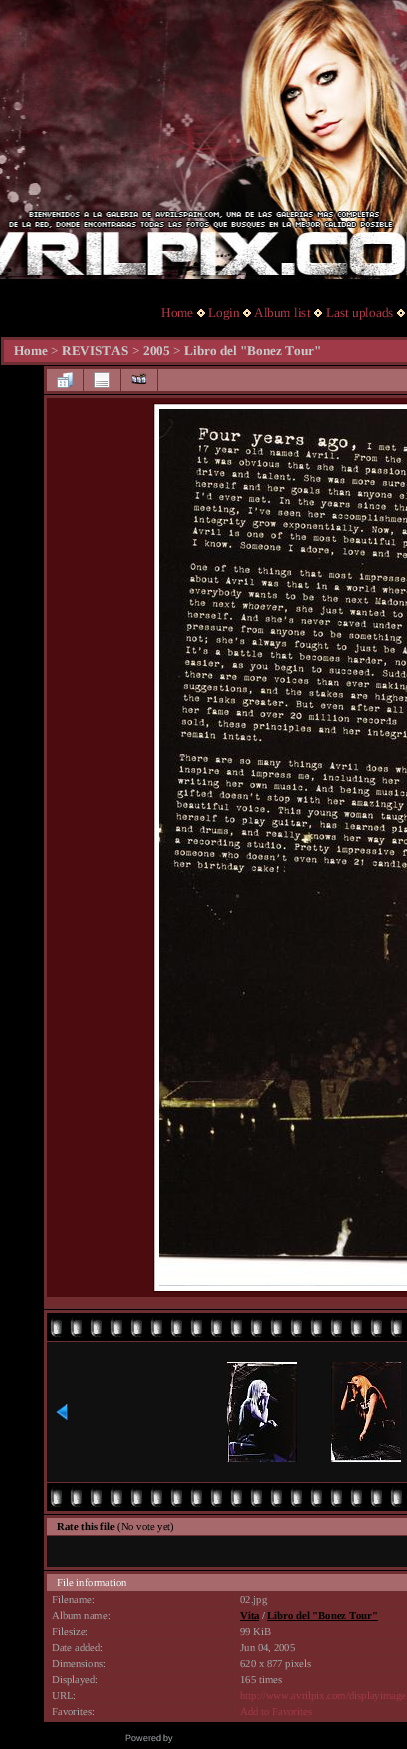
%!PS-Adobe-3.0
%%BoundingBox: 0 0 407 1749
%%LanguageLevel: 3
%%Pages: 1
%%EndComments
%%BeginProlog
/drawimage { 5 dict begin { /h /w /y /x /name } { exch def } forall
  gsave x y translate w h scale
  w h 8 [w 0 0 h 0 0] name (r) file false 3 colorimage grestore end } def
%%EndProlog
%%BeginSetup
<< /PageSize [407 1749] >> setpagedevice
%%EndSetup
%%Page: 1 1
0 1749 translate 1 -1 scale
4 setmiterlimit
0 setgray
0 0 407 1749 rectfill
(images/1.raw) 0 0 407 281 drawimage
(images/2.raw) 197 309 8 8 drawimage
(images/2.raw) 243 309 8 8 drawimage
(images/2.raw) 314 309 8 8 drawimage
(images/2.raw) 397 309 8 8 drawimage
0.424 0.18 0.192 setrgbcolor
1 337 406 28 rectfill
0.627 0.227 0.282 setrgbcolor
4 340 403 22 rectfill
0.424 0.18 0.192 setrgbcolor
44 366 363 28 rectfill
0.655 0.412 0.42 setrgbcolor
47 369 36 22 rectfill
(images/3.raw) 57 372 16 16 drawimage
84 369 36 22 rectfill
(images/4.raw) 94 372 16 16 drawimage
121 369 36 22 rectfill
(images/5.raw) 131 373 16 12 drawimage
158 369 249 22 rectfill
0.424 0.18 0.192 setrgbcolor
44 395 363 914 rectfill
0.298 0.043 0.055 setrgbcolor
47 398 360 899 rectfill
1 setgray
newpath 153.5 403.5 moveto 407.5 403.5 lineto 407.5 1291.5 lineto 153.5 1291.5 lineto closepath gsave fill grestore
0.208 0.004 0.012 setrgbcolor
stroke
(images/6.raw) 159 409 248 877 drawimage
0.443 0.165 0.176 setrgbcolor
47 1298 360 8 rectfill
0.424 0.18 0.192 setrgbcolor
44 1310 363 204 rectfill
(images/7.raw) 47 1313 360 28 drawimage
0.063 setgray
47 1342 360 140 rectfill
(images/8.raw) 56 1404 12 16 drawimage
(images/9.raw) 227 1362 70 100 drawimage
(images/10.raw) 331 1362 70 100 drawimage
(images/7.raw) 47 1483 360 28 drawimage
0.424 0.18 0.192 setrgbcolor
44 1515 363 55 rectfill
0.655 0.412 0.42 setrgbcolor
47 1518 360 17 rectfill
0.063 setgray
47 1536 360 31 rectfill
0.424 0.18 0.192 setrgbcolor
44 1571 363 151 rectfill
0.655 0.412 0.42 setrgbcolor
47 1574 360 17 rectfill
0.443 0.165 0.176 setrgbcolor
47 1592 187 15 rectfill
235 1592 172 15 rectfill
47 1608 187 15 rectfill
235 1608 172 15 rectfill
0 setgray
240 1620 19 1 rectfill
267 1620 111 1 rectfill
0.443 0.165 0.176 setrgbcolor
47 1624 187 15 rectfill
235 1624 172 15 rectfill
47 1640 187 15 rectfill
235 1640 172 15 rectfill
47 1656 187 15 rectfill
235 1656 172 15 rectfill
47 1672 187 15 rectfill
235 1672 172 15 rectfill
47 1688 187 15 rectfill
235 1688 172 15 rectfill
47 1704 187 15 rectfill
235 1704 172 15 rectfill
/LiberationSerif-Regular [13.25 0 0 -13.25 0 0] selectfont
0.71 0.227 0.282 setrgbcolor
161 317 moveto (Home) show
208 317 moveto (Login) show
254 317 moveto (Album list) show
326 317 moveto (Last uploads) show
/LiberationSerif-Bold [13.25 0 0 -13.25 0 0] selectfont
0.788 setgray
14 355 moveto (Home) show
/LiberationSerif-Regular [13.25 0 0 -13.25 0 0] selectfont
51 355 moveto (>) show
/LiberationSerif-Bold [13.25 0 0 -13.25 0 0] selectfont
62 355 moveto (REVISTAS) show
/LiberationSerif-Regular [13.25 0 0 -13.25 0 0] selectfont
132 355 moveto (>) show
/LiberationSerif-Bold [13.25 0 0 -13.25 0 0] selectfont
143 355 moveto (2005) show
/LiberationSerif-Regular [13.25 0 0 -13.25 0 0] selectfont
173 355 moveto (>) show
/LiberationSerif-Bold [13.25 0 0 -13.25 0 0] selectfont
184 355 moveto (Libro del "Bonez Tour") show
/LiberationSerif-Bold [10.7 0 0 -10.7 0 0] selectfont
0 setgray
57 1530 moveto (Rate this file) show
/LiberationSerif-Regular [10.7 0 0 -10.7 0 0] selectfont
117 1530 moveto (\(No vote yet\)) show
0.976 setgray
57 1586 moveto (File information) show
0.647 0.659 0.667 setrgbcolor
52 1603 moveto (Filename:) show
240 1603 moveto (02.jpg) show
52 1619 moveto (Album name:) show
/LiberationSerif-Bold [10.7 0 0 -10.7 0 0] selectfont
0 setgray
240 1619 moveto (Vita) show
0.647 0.659 0.667 setrgbcolor
262 1619 moveto (/) show
0 setgray
267 1619 moveto (Libro del "Bonez Tour") show
/LiberationSerif-Regular [10.7 0 0 -10.7 0 0] selectfont
0.647 0.659 0.667 setrgbcolor
52 1635 moveto (Filesize:) show
240 1635 moveto (99 KiB) show
52 1651 moveto (Date added:) show
240 1651 moveto (Jun 04, 2005) show
52 1667 moveto (Dimensions:) show
240 1667 moveto (620 x 877 pixels) show
52 1683 moveto (Displayed:) show
240 1683 moveto (165 times) show
52 1699 moveto (URL:) show
0.627 0.227 0.282 setrgbcolor
240 1699 moveto (http://www.avrilpix.com/displayimage.) show
0.647 0.659 0.667 setrgbcolor
52 1715 moveto (Favorites:) show
0.627 0.227 0.282 setrgbcolor
240 1715 moveto (Add to Favorites) show
/LiberationSans-Regular [9 0 0 -9 0 0] selectfont
0.647 0.659 0.667 setrgbcolor
125 1741 moveto (Powered by) show
showpage
%%EOF
